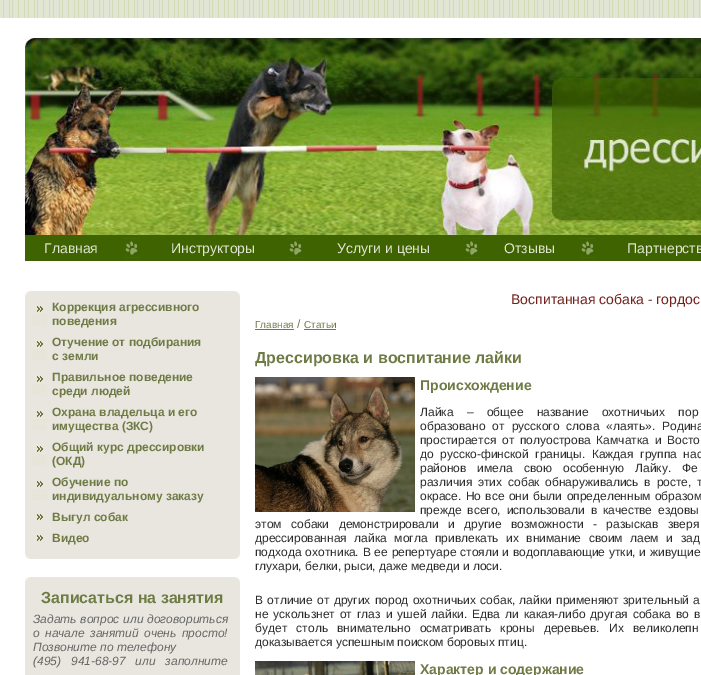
%!PS-Adobe-3.0
%%BoundingBox: 0 0 701 675
%%LanguageLevel: 3
%%Pages: 1
%%EndComments
%%BeginProlog
/drawimage { 5 dict begin { /h /w /y /x /name } { exch def } forall
  gsave x y translate w h scale
  w h 8 [w 0 0 h 0 0] name (r) file false 3 colorimage grestore end } def
%%EndProlog
%%BeginSetup
<< /PageSize [701 675] >> setpagedevice
%%EndSetup
%%Page: 1 1
0 675 translate 1 -1 scale
4 setmiterlimit
1 setgray
0 0 701 675 rectfill
(images/1.raw) 0 0 701 18 drawimage
(images/2.raw) 25 38 676 197 drawimage
0.247 0.388 0.004 setrgbcolor
25 235 676 26 rectfill
(images/3.raw) 123 238 17 20 drawimage
(images/3.raw) 287 238 17 20 drawimage
(images/3.raw) 463 238 17 20 drawimage
(images/3.raw) 579 238 17 20 drawimage
(images/4.raw) 25 291 215 7 drawimage
0.914 0.902 0.875 setrgbcolor
25 298 215 254 rectfill
(images/5.raw) 32 303 15 22 drawimage
(images/5.raw) 32 338 15 22 drawimage
(images/5.raw) 32 373 15 22 drawimage
(images/5.raw) 32 408 15 22 drawimage
(images/5.raw) 32 443 15 22 drawimage
(images/5.raw) 32 478 15 22 drawimage
(images/6.raw) 32 511 15 11 drawimage
(images/6.raw) 32 532 15 11 drawimage
(images/7.raw) 25 552 215 7 drawimage
(images/4.raw) 25 577 215 7 drawimage
25 584 215 91 rectfill
0.435 0.482 0.271 setrgbcolor
255 329 39 1 rectfill
304 329 32 1 rectfill
(images/8.raw) 255 377 160 135 drawimage
(images/9.raw) 255 661 160 14 drawimage
/LiberationSans-Regular [14 0 0 -14 0 0] selectfont
0.882 0.898 0.827 setrgbcolor
44 253 moveto (Главная) show
171 253 moveto (Инструкторы) show
337 253 moveto (Услуги и цены) show
504 253 moveto (Отзывы) show
627 253 moveto (Партнерств) show
/LiberationSans-Bold [12 0 0 -12 0 0] selectfont
0.435 0.482 0.271 setrgbcolor
52 311 moveto (Коррекция агрессивного) show
52 325 moveto (поведения) show
52 346 moveto (Отучение от подбирания) show
52 360 moveto (с земли) show
52 381 moveto (Правильное поведение) show
52 395 moveto (среди людей) show
52 416 moveto (Охрана владельца и его) show
52 430 moveto (имущества \(ЗКС\)) show
52 451 moveto (Общий курс дрессировки) show
52 465 moveto (\(ОКД\)) show
52 486 moveto (Обучение по) show
52 500 moveto (индивидуальному заказу) show
52 521 moveto (Выгул собак) show
52 542 moveto (Видео) show
/LiberationSans-Bold [16 0 0 -16 0 0] selectfont
41 603 moveto (Записаться на занятия) show
/LiberationSans-Italic [12 0 0 -12 0 0] selectfont
0.4 setgray
33 623 moveto 0.5 0 32 (Задать вопрос или договориться) widthshow
33 637 moveto 2 0 32 (о начале занятий очень просто!) widthshow
33 651 moveto (Позвоните по телефону) show
33 665 moveto 6.5 0 32 (\(495\) 941-68-97 или заполните) widthshow
/LiberationSans-Regular [14 0 0 -14 0 0] selectfont
0.447 0.129 0.106 setrgbcolor
511 304 moveto (Воспитанная собака - гордос) show
/LiberationSans-Regular [10 0 0 -10 0 0] selectfont
0.435 0.482 0.271 setrgbcolor
255 328 moveto (Главная) show
/LiberationSans-Regular [12 0 0 -12 0 0] selectfont
297 328 moveto (/) show
/LiberationSans-Regular [10 0 0 -10 0 0] selectfont
304 328 moveto (Статьи) show
/LiberationSans-Bold [16 0 0 -16 0 0] selectfont
255 363 moveto (Дрессировка и воспитание лайки) show
/LiberationSans-Bold [14 0 0 -14 0 0] selectfont
420 390 moveto (Происхождение) show
/LiberationSans-Regular [12 0 0 -12 0 0] selectfont
0.173 setgray
420 416 moveto 10 0 32 (Лайка – общее название охотничьих пор) widthshow
420 430 moveto 3.75 0 32 (образовано от русского слова «лаять». Родина) widthshow
420 444 moveto 2.5 0 32 (простирается от полуострова Камчатка и Восто) widthshow
420 458 moveto 3.25 0 32 (до русско-финской границы. Каждая группа нас) widthshow
420 472 moveto 7.75 0 32 (районов имела свою особенную Лайку. Фе) widthshow
420 486 moveto 2.5 0 32 (различия этих собак обнаруживались в росте, т) widthshow
420 500 moveto 1 0 32 (окрасе. Но все они были определенным образом) widthshow
420 514 moveto 2.5 0 32 (прежде всего, использовали в качестве ездовы) widthshow
255 528 moveto (этом) show
291 528 moveto 6 0 32 (собаки демонстрировали и другие возможности - разыскав зверя) widthshow
255 542 moveto 4.25 0 32 (дрессированная лайка могла привлекать их внимание своим лаем и зад) widthshow
255 556 moveto 0.5 0 32 (подхода охотника. В ее репертуаре стояли и водоплавающие утки, и живущие) widthshow
255 570 moveto (глухари, белки, рыси, даже медведи и лоси.) show
255 604 moveto 1 0 32 (В отличие от других пород охотничьих собак, лайки применяют зрительный а) widthshow
255 618 moveto 1.7 0 32 (не ускользнет от глаз и ушей лайки. Едва ли какая-либо другая собака во в) widthshow
255 632 moveto 6 0 32 (будет столь внимательно осматривать кроны деревьев. Их великолепн) widthshow
255 646 moveto (доказывается успешным поиском боровых птиц.) show
/LiberationSans-Bold [14 0 0 -14 0 0] selectfont
0.435 0.482 0.271 setrgbcolor
420 674 moveto (Характер и содержание) show
showpage
%%EOF
